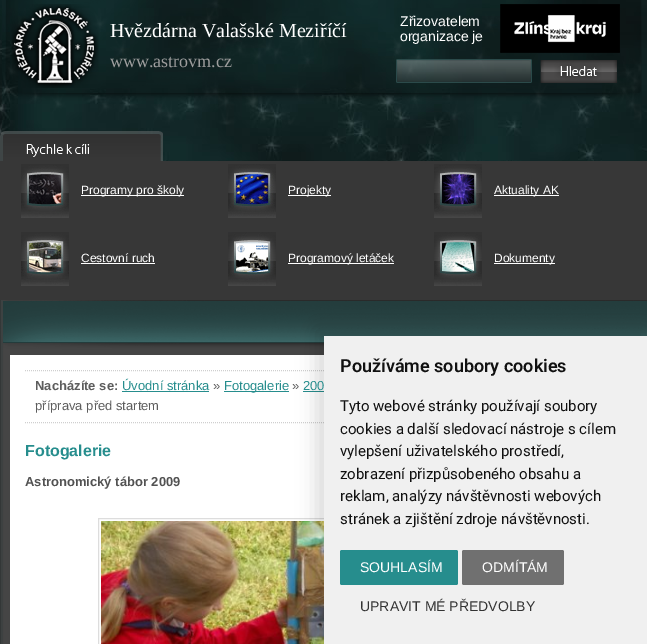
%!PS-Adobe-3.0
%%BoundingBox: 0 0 647 644
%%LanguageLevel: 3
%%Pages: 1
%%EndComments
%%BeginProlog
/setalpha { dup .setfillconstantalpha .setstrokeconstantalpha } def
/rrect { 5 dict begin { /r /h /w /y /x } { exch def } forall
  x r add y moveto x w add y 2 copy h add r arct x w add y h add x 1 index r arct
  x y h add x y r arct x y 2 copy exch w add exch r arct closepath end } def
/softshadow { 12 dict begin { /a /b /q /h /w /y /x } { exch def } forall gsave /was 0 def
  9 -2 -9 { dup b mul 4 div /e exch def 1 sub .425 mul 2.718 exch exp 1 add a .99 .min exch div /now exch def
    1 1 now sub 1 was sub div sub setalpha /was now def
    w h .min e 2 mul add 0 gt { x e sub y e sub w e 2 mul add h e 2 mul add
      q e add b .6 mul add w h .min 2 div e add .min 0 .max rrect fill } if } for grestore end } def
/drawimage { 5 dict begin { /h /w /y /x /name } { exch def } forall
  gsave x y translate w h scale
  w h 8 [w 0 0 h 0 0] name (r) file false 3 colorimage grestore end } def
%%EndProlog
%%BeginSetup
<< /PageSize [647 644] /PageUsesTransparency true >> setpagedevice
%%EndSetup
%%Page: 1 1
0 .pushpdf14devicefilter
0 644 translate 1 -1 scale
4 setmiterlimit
1 setgray
0 0 647 644 rectfill
(images/1.raw) 0 0 647 161 drawimage
(images/2.raw) 5 0 637 125 drawimage
(images/3.raw) 11 4 88 84 drawimage
(images/4.raw) 12 4 86 84 drawimage
(images/5.raw) 500 4 120 49 drawimage
(images/6.raw) 396 59 221 24 drawimage
(images/7.raw) 0 131 163 30 drawimage
0.216 setgray
0 161 647 139 rectfill
(images/8.raw) 21 164 48 54 drawimage
1 setgray
81 195 103 1 rectfill
(images/9.raw) 228 164 48 54 drawimage
288 195 43 1 rectfill
(images/10.raw) 434 164 48 54 drawimage
494 195 65 1 rectfill
(images/11.raw) 21 232 48 54 drawimage
81 263 74 1 rectfill
(images/12.raw) 228 232 48 54 drawimage
288 263 106 1 rectfill
(images/13.raw) 434 232 48 54 drawimage
494 263 61 1 rectfill
(images/14.raw) 0 300 647 55 drawimage
(images/15.raw) 0 355 10 289 drawimage
0.812 setgray
[1 1] 0 setdash
newpath 25 370.5 moveto 622 370.5 lineto stroke
newpath 25 422.5 moveto 622 422.5 lineto stroke
0.149 0.553 0.553 setrgbcolor
122 391 87 1 rectfill
224 391 65 1 rectfill
303 391 29 1 rectfill
0.867 setgray
[] 0 setdash
98.5 518.5 456 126 rectstroke
(images/16.raw) 101 521 223 123 drawimage
0 setgray
317 330 327 312 0 10 0.15 softshadow
/LiberationSerif-Regular [20 0 0 -20 0 0] selectfont
1 setgray
110 37 moveto (Hvězdárna Valašské Meziříčí) show
/LiberationSerif-Regular [18 0 0 -18 0 0] selectfont
0.616 setgray
110 67 moveto (www.astrovm.cz) show
/LiberationSans-Regular [14 0 0 -14 0 0] selectfont
1 setgray
400 26 moveto (Zřizovatelem) show
400 41 moveto (organizace je) show
/LiberationSans-Regular [12 0 0 -12 0 0] selectfont
81 194 moveto (Programy pro školy) show
288 194 moveto (Projekty) show
494 194 moveto (Aktuality AK) show
81 262 moveto (Cestovní ruch) show
288 262 moveto (Programový letáček) show
494 262 moveto (Dokumenty) show
/LiberationSans-Bold [13 0 0 -13 0 0] selectfont
0.365 setgray
35 390 moveto (Nacházíte se:) show
/LiberationSans-Regular [13 0 0 -13 0 0] selectfont
0.149 0.553 0.553 setrgbcolor
122 390 moveto (Úvodní stránka) show
0.365 setgray
213 390 moveto (») show
0.149 0.553 0.553 setrgbcolor
224 390 moveto (Fotogalerie) show
0.365 setgray
292 390 moveto (») show
0.149 0.553 0.553 setrgbcolor
303 390 moveto (200) show
0.365 setgray
35 410 moveto (příprava před startem) show
/LiberationSans-Bold [16 0 0 -16 0 0] selectfont
0.149 0.553 0.553 setrgbcolor
25 456 moveto (Fotogalerie) show
/LiberationSans-Bold [13 0 0 -13 0 0] selectfont
0.322 setgray
25 486 moveto (Astronomický tábor 2009) show
0.941 setgray
324 336 323 308 rectfill
/Roboto-SemiBold [18 0 0 -18 0 0] selectfont
0.067 setgray
340 372 moveto (Používáme soubory cookies) show
/Roboto-Regular [15 0 0 -15 0 0] selectfont
340 411 moveto (Tyto webové stránky používají soubory) show
340 434 moveto (cookies a další sledovací nástroje s cílem) show
340 456 moveto (vylepšení uživatelského prostředí,) show
340 479 moveto (zobrazení přizpůsobeného obsahu a) show
340 501 moveto (reklam, analýzy návštěvnosti webových) show
340 524 moveto (stránek a zjištění zdroje návštěvnosti.) show
0.149 0.553 0.553 setrgbcolor
340 550 118 35 2 rrect fill
/LiberationSans-Regular [14 0 0 -14 0 0] selectfont
1 setgray
360 572 moveto (SOUHLASÍM) show
0.439 setgray
462 550 102 35 2 rrect fill
1 setgray
482 572 moveto (ODMÍTÁM) show
0.2 setgray
360 611 moveto (UPRAVIT MÉ PŘEDVOLBY) show
.poppdf14devicefilter showpage
%%EOF
